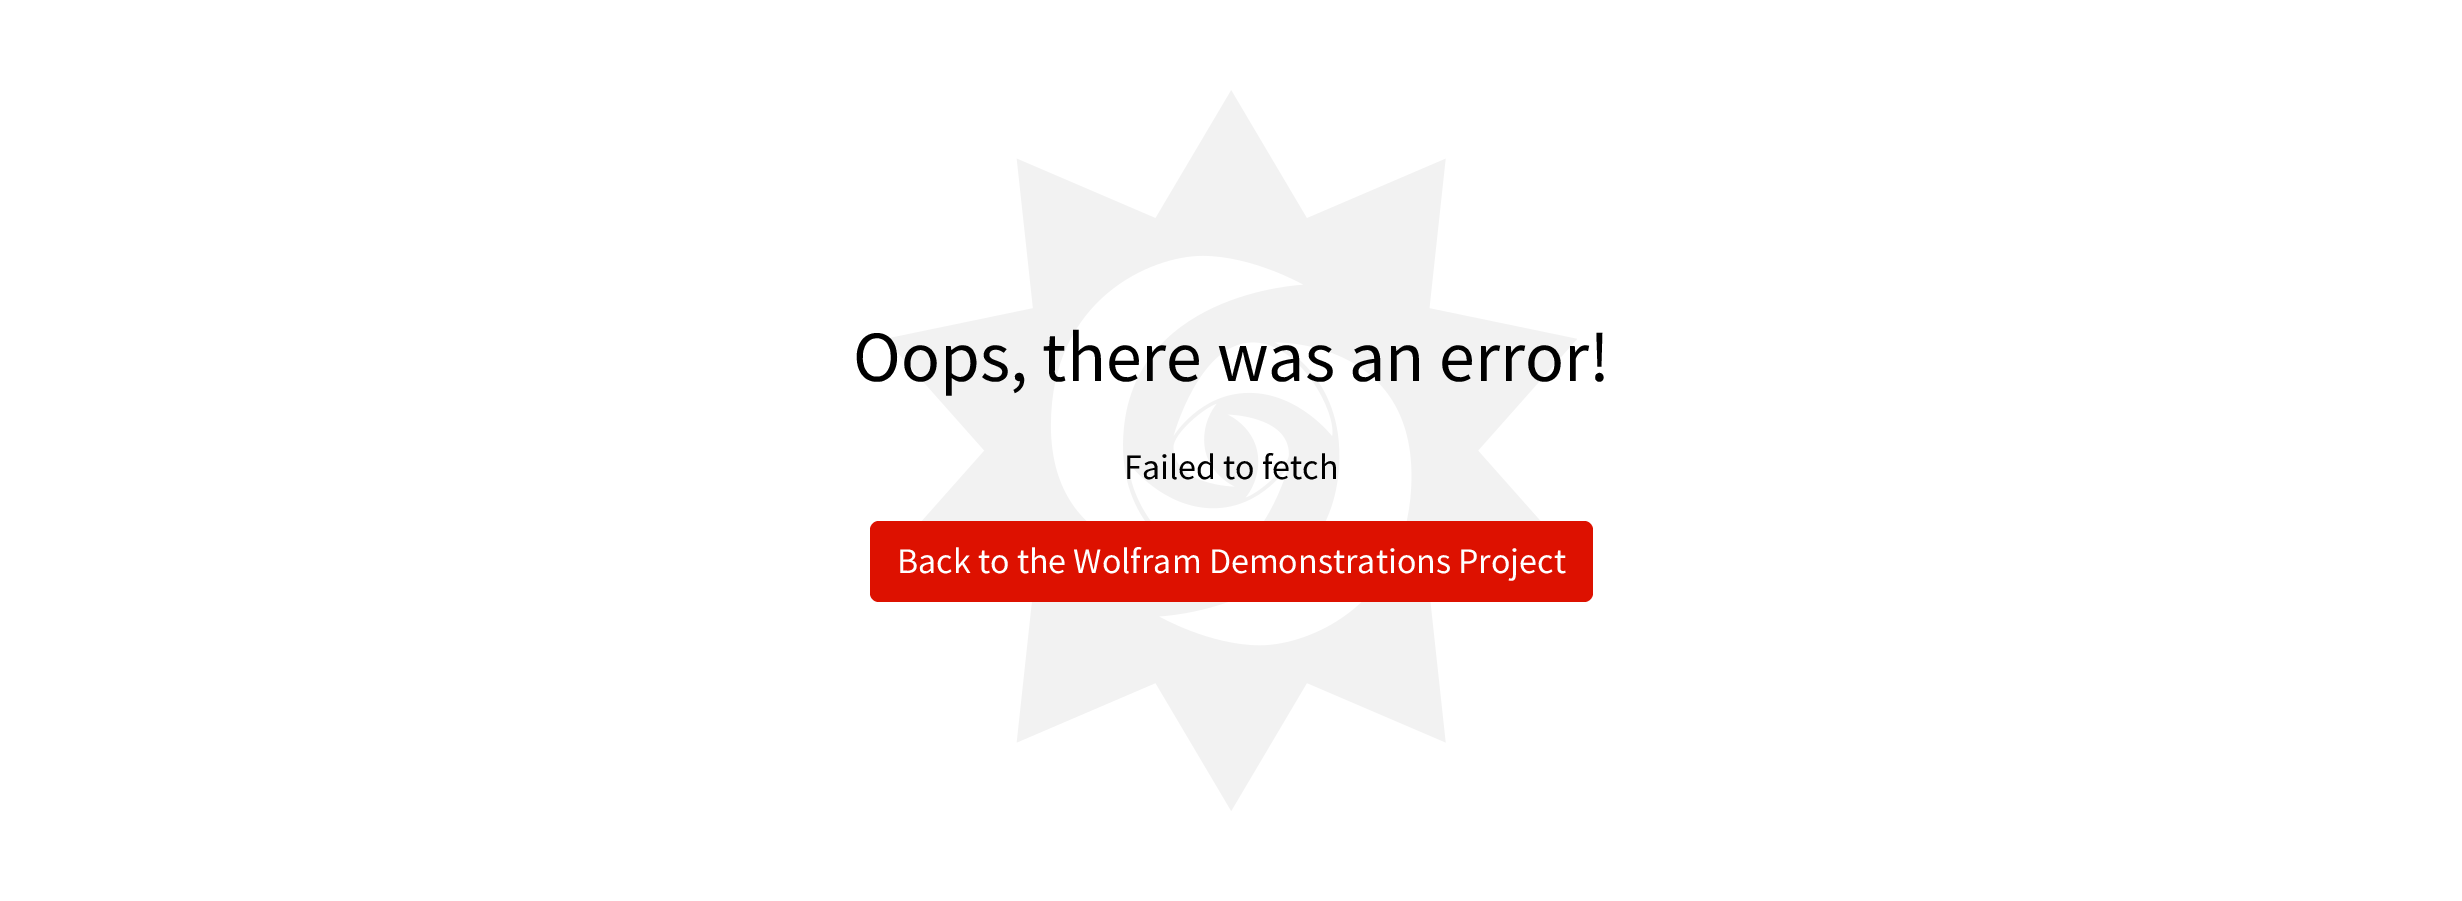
%!PS-Adobe-3.0
%%BoundingBox: 0 0 2462 901
%%LanguageLevel: 3
%%Pages: 1
%%EndComments
%%BeginProlog
/rrect { 5 dict begin { /r /h /w /y /x } { exch def } forall
  x r add y moveto x w add y 2 copy h add r arct x w add y h add x 1 index r arct
  x y h add x y r arct x y 2 copy exch w add exch r arct closepath end } def
/drawimage { 5 dict begin { /h /w /y /x /name } { exch def } forall
  gsave x y translate w h scale
  w h 8 [w 0 0 h 0 0] name (r) file false 3 colorimage grestore end } def
%%EndProlog
%%BeginSetup
<< /PageSize [2462 901] >> setpagedevice
%%EndSetup
%%Page: 1 1
0 901 translate 1 -1 scale
4 setmiterlimit
1 setgray
0 0 2462 901 rectfill
(images/1.raw) 885 90 692 721 drawimage
0.867 0.067 0 setrgbcolor
870 521 723 81 9 rrect fill
/SourceSansPro-Regular [72 0 0 -72 0 0] selectfont
0 setgray
853 381 moveto (Oops, there was an error!) show
/SourceSansPro-Regular [36 0 0 -36 0 0] selectfont
1124 479 moveto (Failed to fetch) show
1 setgray
897 573 moveto (Back to the Wolfram Demonstrations Project) show
showpage
%%EOF
